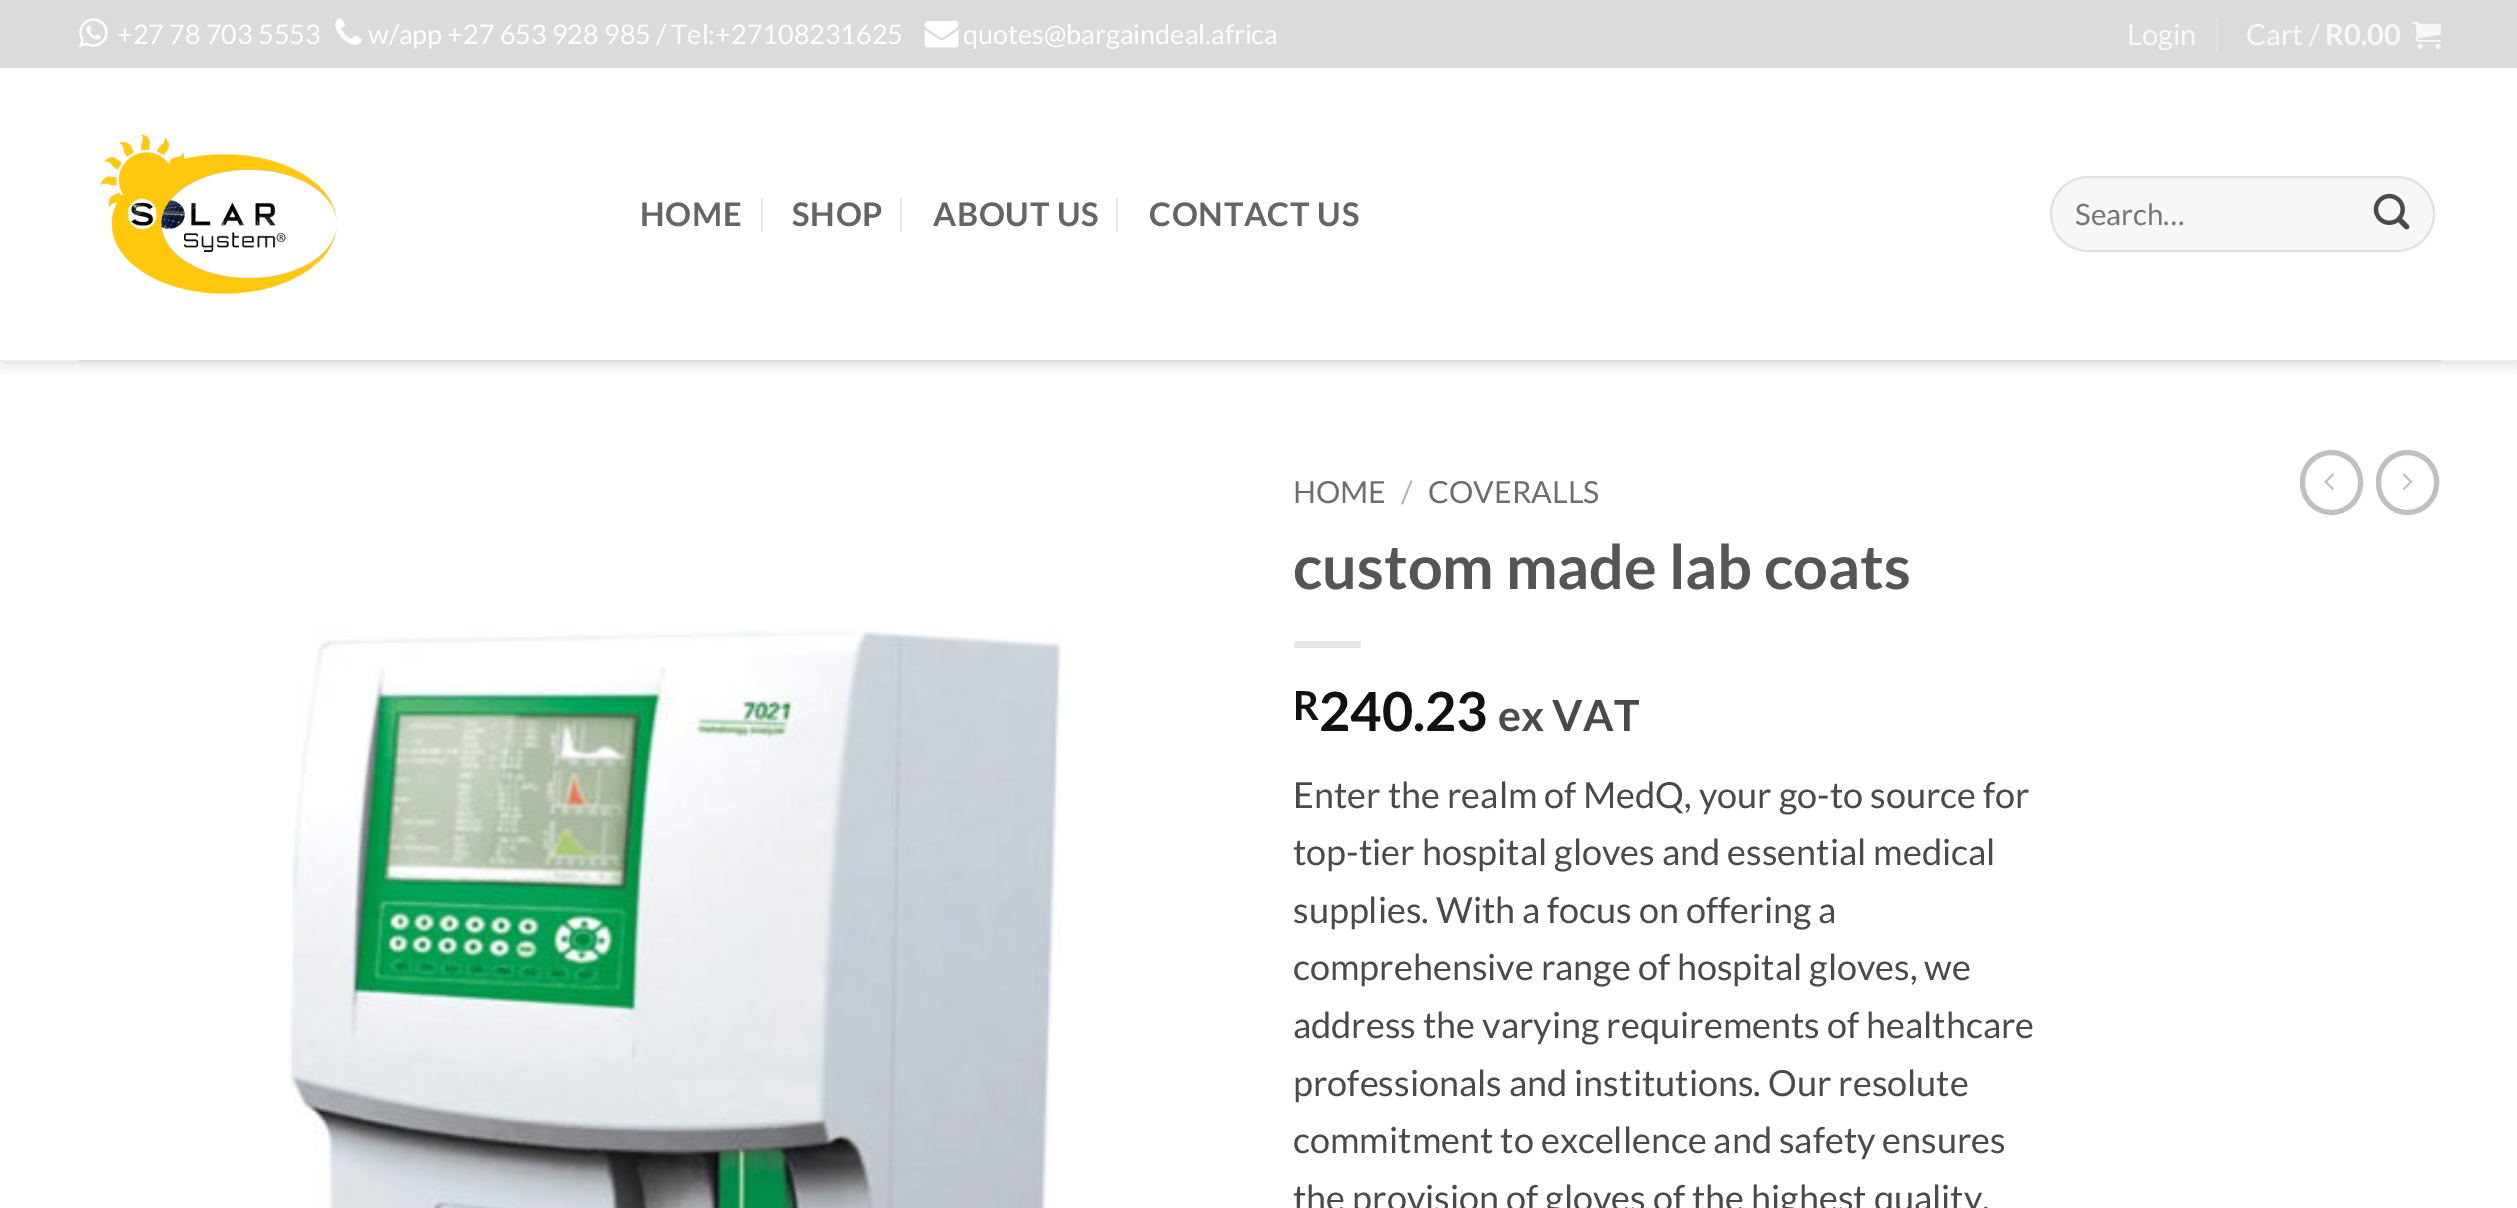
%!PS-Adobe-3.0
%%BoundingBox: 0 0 2517 1208
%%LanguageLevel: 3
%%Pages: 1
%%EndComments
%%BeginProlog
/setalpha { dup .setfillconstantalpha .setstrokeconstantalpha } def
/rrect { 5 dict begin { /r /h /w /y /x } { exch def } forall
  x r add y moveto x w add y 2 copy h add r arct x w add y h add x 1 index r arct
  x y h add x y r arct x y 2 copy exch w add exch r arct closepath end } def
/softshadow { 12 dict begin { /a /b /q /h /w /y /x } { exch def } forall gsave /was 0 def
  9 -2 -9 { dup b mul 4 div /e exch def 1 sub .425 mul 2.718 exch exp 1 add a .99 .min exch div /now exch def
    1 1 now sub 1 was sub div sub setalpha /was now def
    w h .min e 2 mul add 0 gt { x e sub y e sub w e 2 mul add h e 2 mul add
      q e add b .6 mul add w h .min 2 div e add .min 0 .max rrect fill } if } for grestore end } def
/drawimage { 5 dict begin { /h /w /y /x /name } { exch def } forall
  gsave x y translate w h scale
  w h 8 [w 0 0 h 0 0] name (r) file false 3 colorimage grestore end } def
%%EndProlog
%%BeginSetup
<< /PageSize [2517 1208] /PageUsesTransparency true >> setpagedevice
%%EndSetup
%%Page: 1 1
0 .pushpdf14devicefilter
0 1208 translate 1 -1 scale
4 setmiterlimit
1 setgray
0 0 2517 1208 rectfill
gsave
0 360 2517 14 rectclip
0 setgray
2 2 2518 360 0 11 0.15 softshadow
grestore
0.859 setgray
0 0 2517 68 rectfill
(images/1.raw) 79 18 29 30 drawimage
(images/2.raw) 335 18 27 27 drawimage
(images/3.raw) 924 20 35 28 drawimage
0.886 setgray
2216 18 2 34 rectfill
(images/4.raw) 2412 22 29 27 drawimage
(images/5.raw) 100 134 237 161 drawimage
0.902 setgray
761 198 2 34 rectfill
900 198 2 34 rectfill
1116 198 2 34 rectfill
0.969 setgray
2050 176 385 76 38 rrect fill
0.09 setalpha
0 setgray
2 setlinewidth
2051 177 383 74 37 rrect stroke
1 setalpha
(images/6.raw) 2373 193 37 37 drawimage
0.855 setgray
79 360 2362 2 rectfill
(images/7.raw) 289 630 773 578 drawimage
0.902 setgray
1294 641 67 7 rectfill
0.753 setgray
5 setlinewidth
2302.5 452.5 58 60 29 rrect stroke
(images/8.raw) 2324 473 10 18 drawimage
2378.5 452.5 58 60 29 rrect stroke
(images/9.raw) 2402 473 11 17 drawimage
/Lato-Regular [27 0 0 -27 0 0] selectfont
1 setgray
117 44 moveto (+27 78 703 5553) show
368 44 moveto (w/app +27 653 928 985 / Tel:+27108231625) show
963 44 moveto (quotes@bargaindeal.africa) show
/Lato-Regular [29 0 0 -29 0 0] selectfont
0.973 setgray
2127 45 moveto (Login) show
2246 45 moveto (Cart /) show
/Lato-Bold [29 0 0 -29 0 0] selectfont
2325 45 moveto (R0.00) show
/Lato-Bold [32.5 0 0 -32.5 0 0] selectfont
0.396 setgray
640 226 moveto 0.75 0 (HOME) ashow
792 226 moveto 0.75 0 (SHOP) ashow
933 226 moveto 0.75 0 (ABOUT US) ashow
1149 226 moveto 0.75 0 (CONTACT US) ashow
/Lato-Regular [29.5 0 0 -29.5 0 0] selectfont
0.459 setgray
2075 225 moveto (Search…) show
/Lato-Regular [30.5 0 0 -30.5 0 0] selectfont
0.431 setgray
1293 503 moveto (HOME) show
0.698 setgray
1401 503 moveto (/) show
0.431 setgray
1428 503 moveto (COVERALLS) show
/Lato-Bold [61.25 0 0 -61.25 0 0] selectfont
0.333 setgray
1293 589 moveto (custom made lab coats) show
/Lato-Bold [40 0 0 -40 0 0] selectfont
0.067 setgray
1293 720 moveto (R) show
/Lato-Bold [54 0 0 -54 0 0] selectfont
1319 731 moveto (240.23) show
/Lato-Bold [43 0 0 -43 0 0] selectfont
0.29 setgray
1498 731 moveto (ex VAT) show
/Lato-Regular [36 0 0 -36 0 0] selectfont
1293 808 moveto (Enter the realm of MedQ, your go-to source for) show
1293 865 moveto (top-tier hospital gloves and essential medical) show
1293 923 moveto (supplies. With a focus on offering a) show
1293 980 moveto (comprehensive range of hospital gloves, we) show
1293 1038 moveto (address the varying requirements of healthcare) show
1293 1096 moveto (professionals and institutions. Our resolute) show
1293 1153 moveto (commitment to excellence and safety ensures) show
1293 1211 moveto (the provision of gloves of the highest quality,) show
.poppdf14devicefilter showpage
%%EOF
